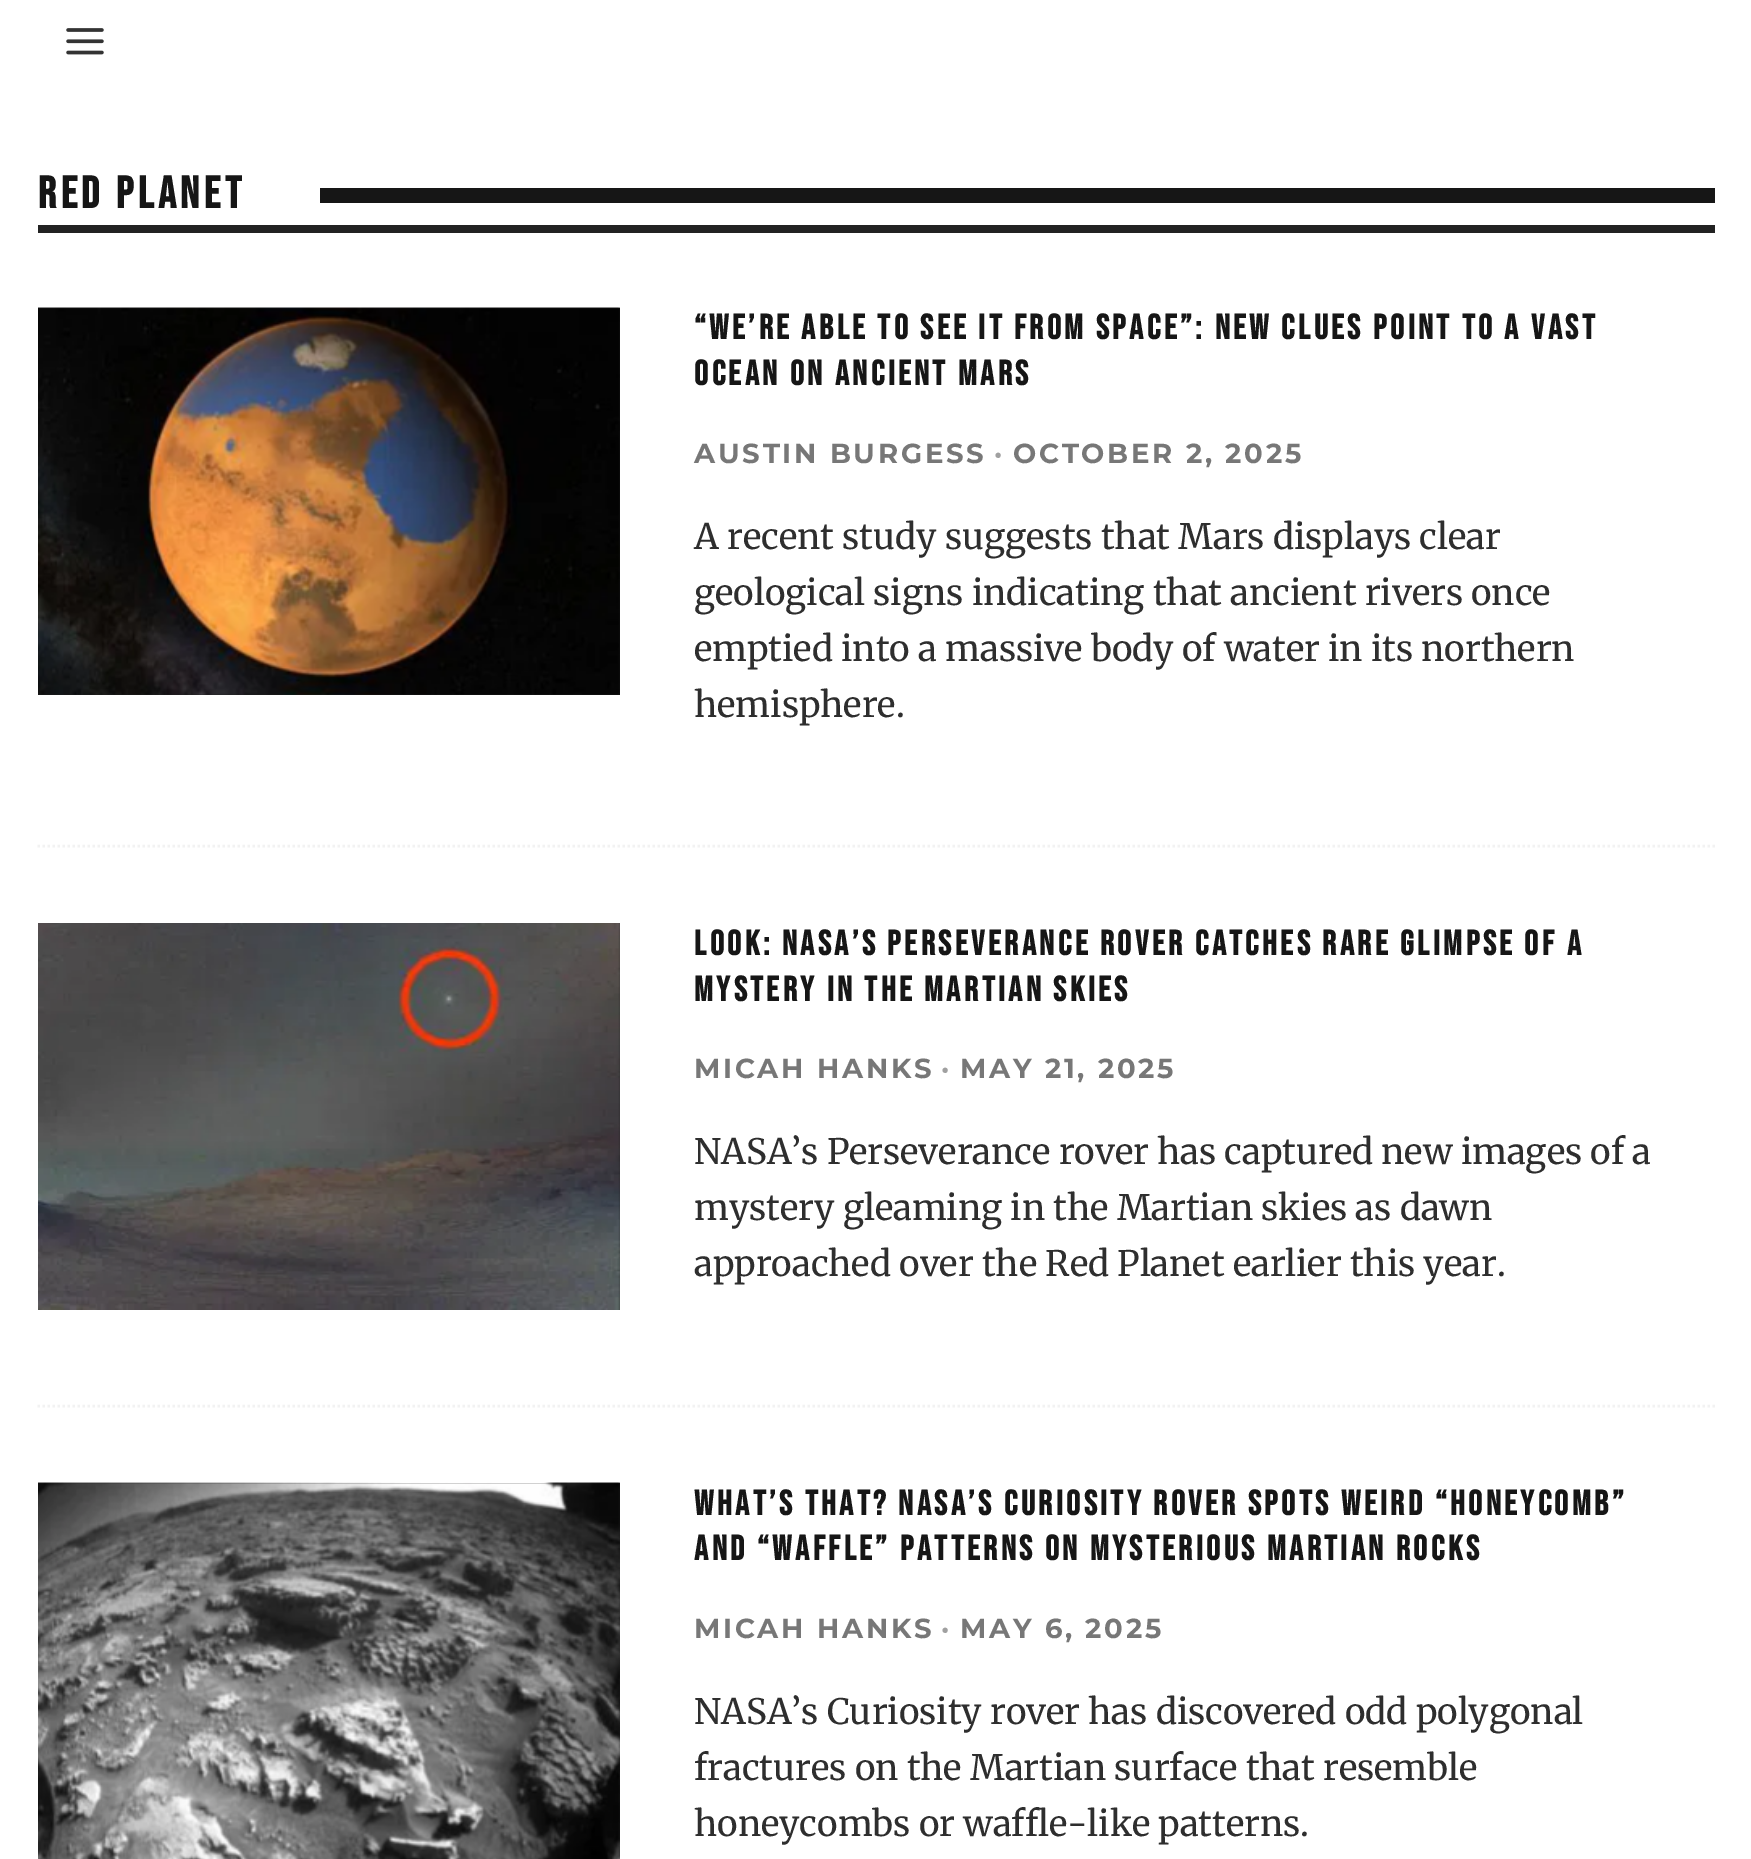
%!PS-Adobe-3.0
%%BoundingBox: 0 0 1751 1859
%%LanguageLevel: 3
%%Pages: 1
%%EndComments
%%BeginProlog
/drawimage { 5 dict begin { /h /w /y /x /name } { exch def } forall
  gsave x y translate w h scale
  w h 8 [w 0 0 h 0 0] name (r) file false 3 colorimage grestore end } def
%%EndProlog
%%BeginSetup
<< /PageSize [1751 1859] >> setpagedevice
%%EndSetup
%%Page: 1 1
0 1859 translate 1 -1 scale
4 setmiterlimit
1 setgray
0 0 1751 1859 rectfill
(images/1.raw) 66 28 38 27 drawimage
0.133 setgray
38 225 1677 8 rectfill
0.086 setgray
320 188 1395 15 rectfill
0.949 setgray
2.5 setlinewidth
[2.5 2.5] 0 setdash
newpath 37.5 846 moveto 1715 846 lineto stroke
0.133 setgray
38 308 582 387 rectfill
(images/2.raw) 38 307 582 388 drawimage
0.949 setgray
newpath 37.5 1406 moveto 1715 1406 lineto stroke
(images/3.raw) 38 923 582 387 drawimage
0.133 setgray
38 1483 582 376 rectfill
(images/4.raw) 38 1482 582 377 drawimage
/BebasNeue-Bold [45 0 0 -45 0 0] selectfont
0.086 setgray
38 208 moveto 4.5 0 (RED PLANET) ashow
/BebasNeue-Bold [35 0 0 -35 0 0] selectfont
694 339 moveto 3.5 0 (“WE’RE ABLE TO SEE IT FROM SPACE”: NEW CLUES POINT TO A VAST) ashow
694 385 moveto 3.5 0 (OCEAN ON ANCIENT MARS) ashow
/Montserrat-Bold [27.5 0 0 -27.5 0 0] selectfont
0.467 setgray
694 463 moveto 2.75 0 (AUSTIN BURGESS) ashow
0.627 setgray
994 463 moveto 2.75 0 (·) ashow
0.467 setgray
1013 463 moveto 2.75 0 (OCTOBER 2, 2025) ashow
/Merriweather-Regular [35 0 0 -35 0 0] selectfont
0.18 setgray
694 549 moveto (A recent study suggests that Mars displays clear) show
694 605 moveto (geological signs indicating that ancient rivers once) show
694 661 moveto (emptied into a massive body of water in its northern) show
694 717 moveto (hemisphere.) show
/BebasNeue-Bold [35 0 0 -35 0 0] selectfont
0.086 setgray
694 955 moveto 3.5 0 (LOOK: NASA’S PERSEVERANCE ROVER CATCHES RARE GLIMPSE OF A) ashow
694 1001 moveto 3.5 0 (MYSTERY IN THE MARTIAN SKIES) ashow
/Montserrat-Bold [27.5 0 0 -27.5 0 0] selectfont
0.467 setgray
694 1078 moveto 2.75 0 (MICAH HANKS) ashow
0.627 setgray
941 1078 moveto 2.75 0 (·) ashow
0.467 setgray
960 1078 moveto 2.75 0 (MAY 21, 2025) ashow
/Merriweather-Regular [35 0 0 -35 0 0] selectfont
0.18 setgray
694 1164 moveto (NASA’s Perseverance rover has captured new images of a) show
694 1220 moveto (mystery gleaming in the Martian skies as dawn) show
694 1276 moveto (approached over the Red Planet earlier this year.) show
/BebasNeue-Bold [35 0 0 -35 0 0] selectfont
0.086 setgray
694 1515 moveto 3.5 0 (WHAT’S THAT? NASA’S CURIOSITY ROVER SPOTS WEIRD “HONEYCOMB”) ashow
694 1560 moveto 3.5 0 (AND “WAFFLE” PATTERNS ON MYSTERIOUS MARTIAN ROCKS) ashow
/Montserrat-Bold [27.5 0 0 -27.5 0 0] selectfont
0.467 setgray
694 1638 moveto 2.75 0 (MICAH HANKS) ashow
0.627 setgray
941 1638 moveto 2.75 0 (·) ashow
0.467 setgray
960 1638 moveto 2.75 0 (MAY 6, 2025) ashow
/Merriweather-Regular [35 0 0 -35 0 0] selectfont
0.18 setgray
694 1724 moveto (NASA’s Curiosity rover has discovered odd polygonal) show
694 1780 moveto (fractures on the Martian surface that resemble) show
694 1836 moveto (honeycombs or waffle-like patterns.) show
showpage
%%EOF
